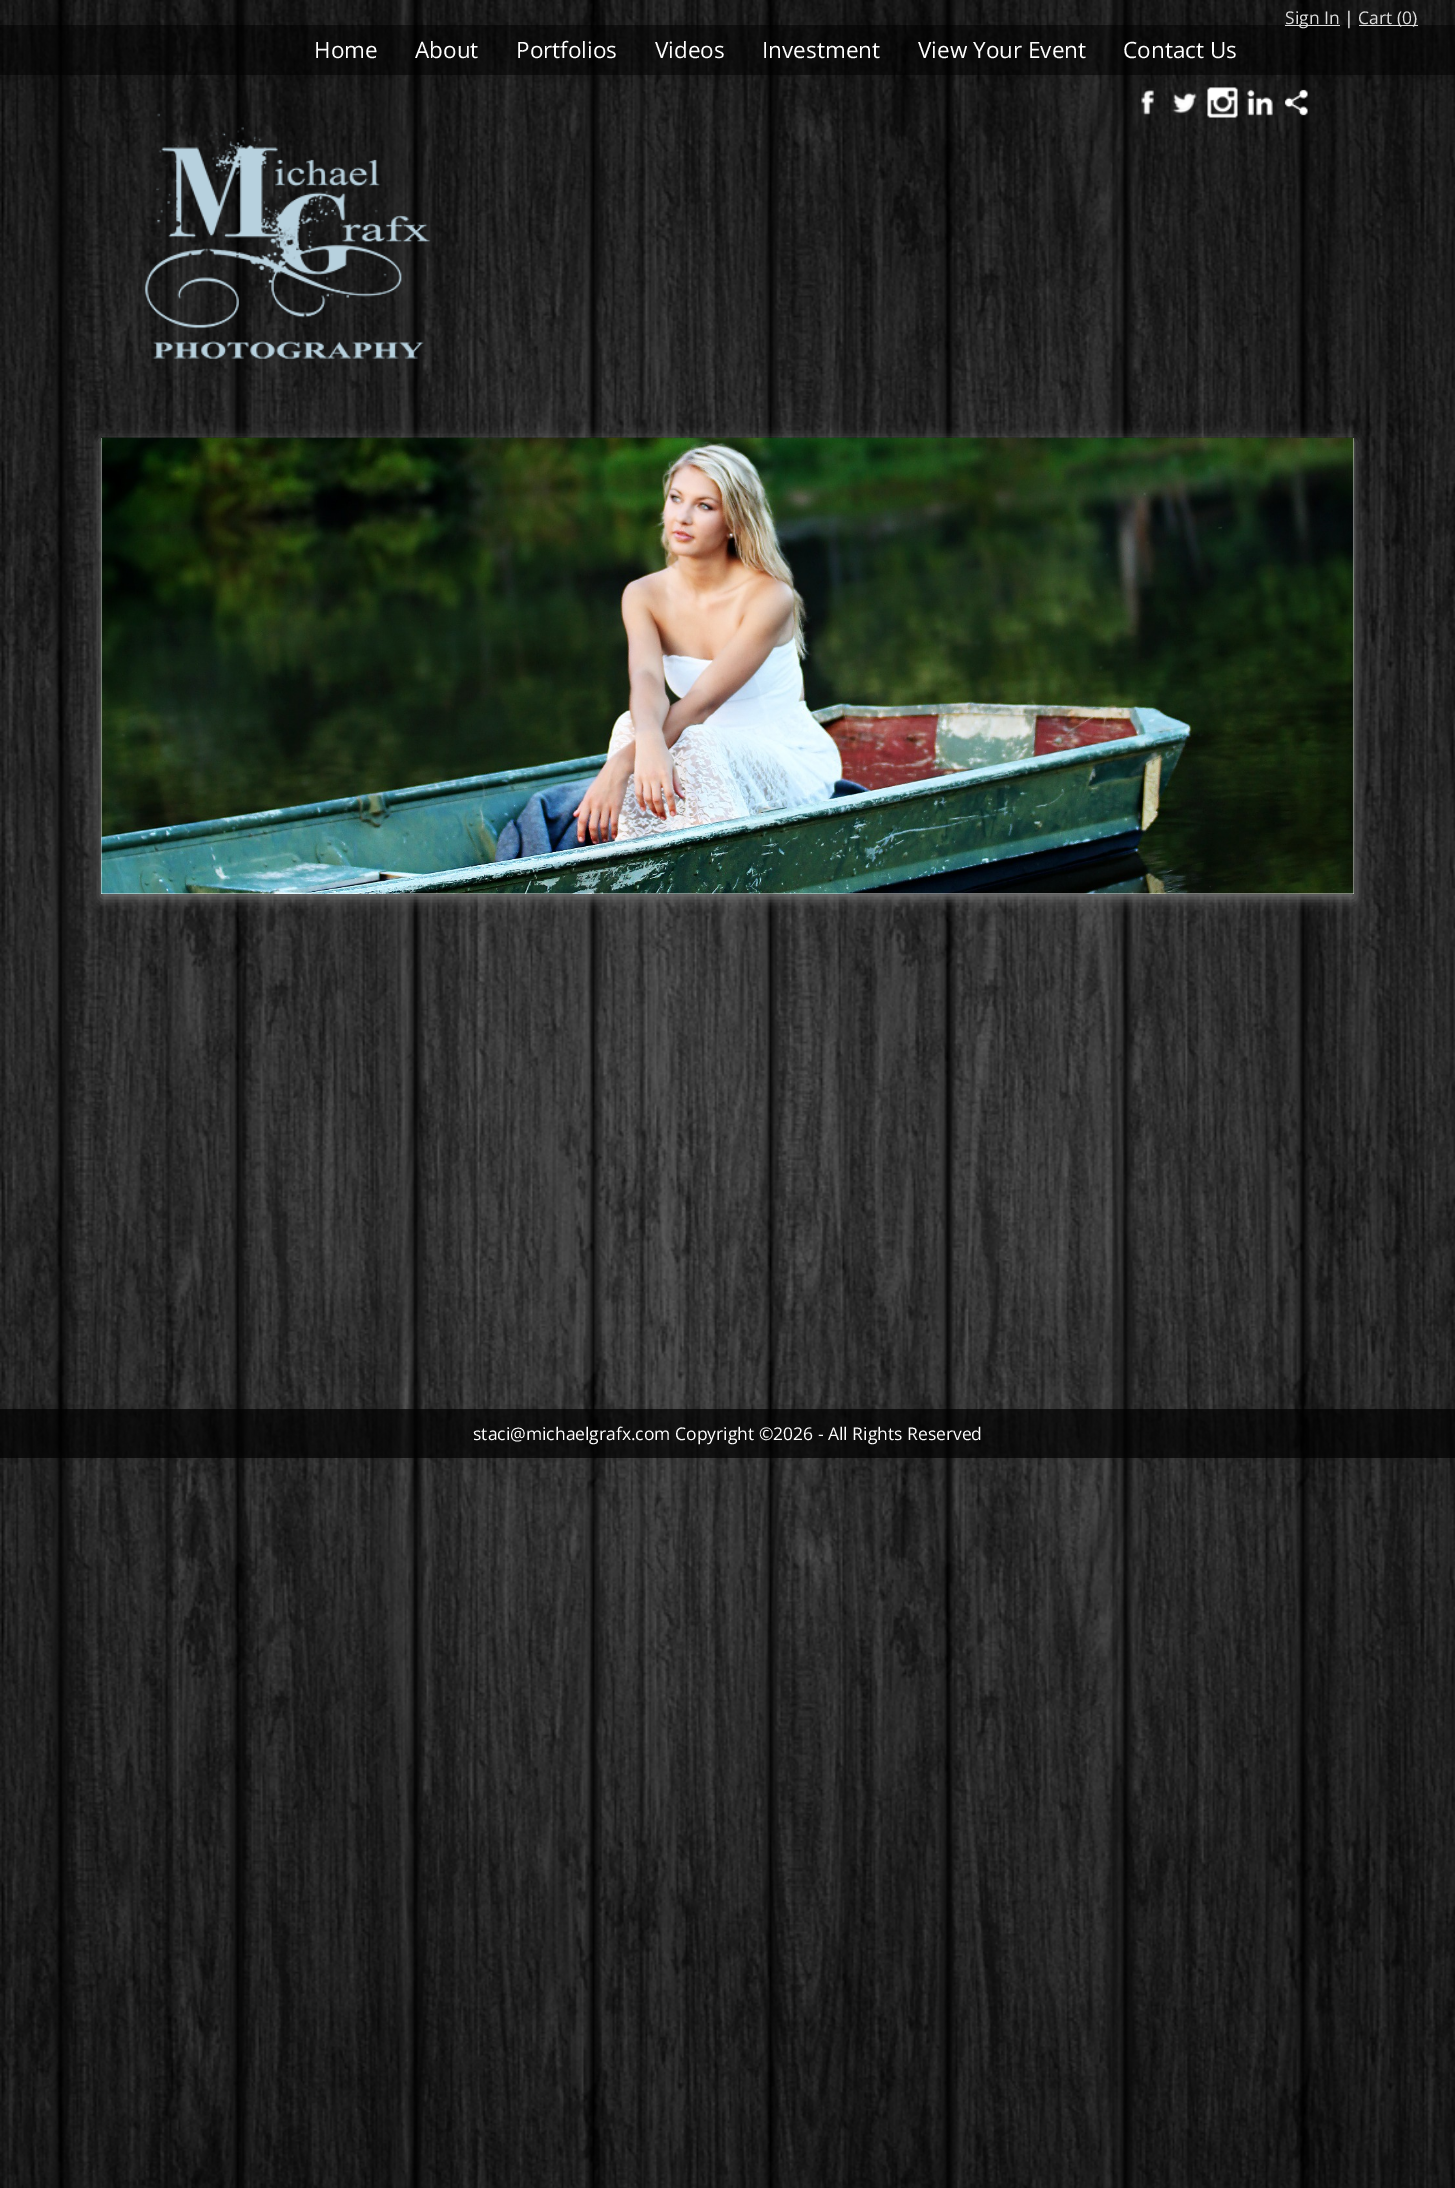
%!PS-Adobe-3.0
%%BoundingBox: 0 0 1455 2188
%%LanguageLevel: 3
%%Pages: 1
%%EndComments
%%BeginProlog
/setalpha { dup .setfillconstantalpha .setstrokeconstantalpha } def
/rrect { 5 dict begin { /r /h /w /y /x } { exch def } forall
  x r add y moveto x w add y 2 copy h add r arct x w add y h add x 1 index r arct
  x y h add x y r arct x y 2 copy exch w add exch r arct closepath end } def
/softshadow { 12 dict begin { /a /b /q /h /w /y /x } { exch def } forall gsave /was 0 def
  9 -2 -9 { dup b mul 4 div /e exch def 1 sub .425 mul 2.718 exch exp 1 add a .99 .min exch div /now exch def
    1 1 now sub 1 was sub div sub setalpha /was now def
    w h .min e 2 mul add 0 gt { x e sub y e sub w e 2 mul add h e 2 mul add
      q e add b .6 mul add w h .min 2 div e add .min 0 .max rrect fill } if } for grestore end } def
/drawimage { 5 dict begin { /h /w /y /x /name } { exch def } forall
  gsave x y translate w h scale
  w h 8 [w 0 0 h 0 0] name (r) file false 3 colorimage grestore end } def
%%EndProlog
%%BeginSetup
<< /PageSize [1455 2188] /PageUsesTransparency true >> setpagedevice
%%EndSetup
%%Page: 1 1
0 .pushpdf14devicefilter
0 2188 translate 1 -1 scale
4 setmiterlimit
1 setgray
0 0 1455 2188 rectfill
(images/1.raw) 0 0 1455 2188 drawimage
0.5 setalpha
0 setgray
0 25 1455 50 rectfill
1 setalpha
0.867 setgray
1285 25 55 1 rectfill
1359 25 59 1 rectfill
(images/2.raw) 1139 88 17 27 drawimage
(images/3.raw) 1172 92 25 23 drawimage
(images/4.raw) 1207 87 31 31 drawimage
(images/5.raw) 1247 89 26 27 drawimage
(images/6.raw) 1284 89 24 27 drawimage
(images/7.raw) 144 113 287 246 drawimage
0.467 setgray
101 441 1253 457 0 6 1 softshadow
1 setgray
101 438 1253 456 rectfill
(images/8.raw) 101 437 1253 457 drawimage
0.7 setalpha
0 setgray
0 1409 1455 49 rectfill
/OpenSans-Regular [17.5 0 0 -17.5 0 0] selectfont
1 setalpha
0.867 setgray
1285 24 moveto (Sign In) show
1 setgray
1344 24 moveto (|) show
0.867 setgray
1358 24 moveto (Cart \(0\)) show
/OpenSans-Regular [22.5 0 0 -22.5 0 0] selectfont
1 setgray
314 58 moveto (Home) show
415 58 moveto (About) show
516 58 moveto (Portfolios) show
655 58 moveto (Videos) show
762 58 moveto (Investment) show
918 58 moveto (View Your Event) show
1123 58 moveto (Contact Us) show
/OpenSans-Regular [17.5 0 0 -17.5 0 0] selectfont
473 1440 moveto (staci@michaelgrafx.com Copyright ©2026 - All Rights Reserved) show
.poppdf14devicefilter showpage
%%EOF
